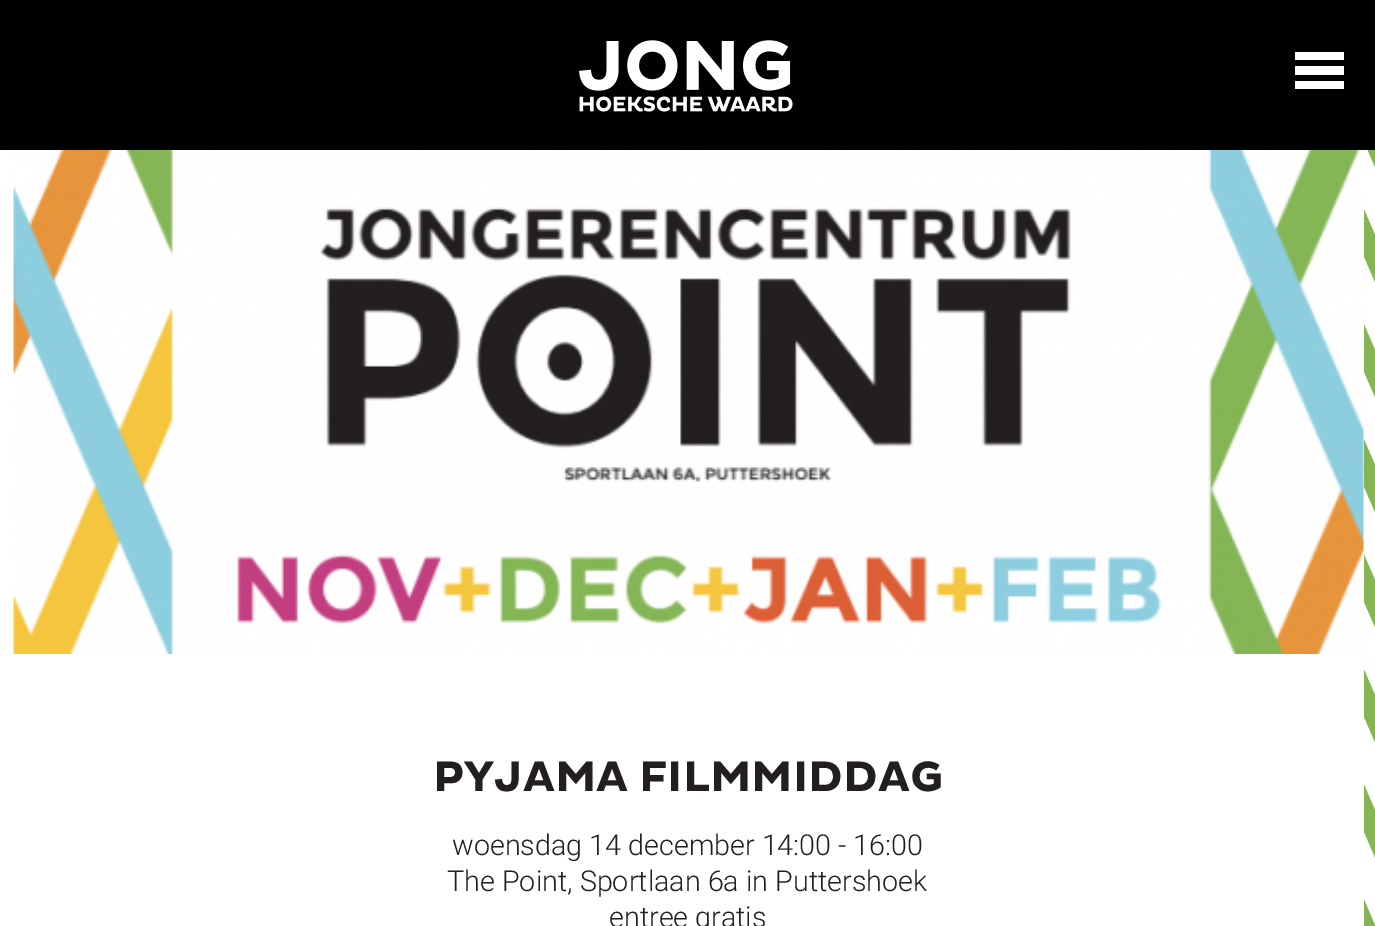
%!PS-Adobe-3.0
%%BoundingBox: 0 0 1375 926
%%LanguageLevel: 3
%%Pages: 1
%%EndComments
%%BeginProlog
/drawimage { 5 dict begin { /h /w /y /x /name } { exch def } forall
  gsave x y translate w h scale
  w h 8 [w 0 0 h 0 0] name (r) file false 3 colorimage grestore end } def
%%EndProlog
%%BeginSetup
<< /PageSize [1375 926] >> setpagedevice
%%EndSetup
%%Page: 1 1
0 926 translate 1 -1 scale
4 setmiterlimit
1 setgray
0 0 1375 926 rectfill
0 setgray
0 0 1375 150 rectfill
(images/1.raw) 579 40 214 72 drawimage
1 setgray
1295 52 49 8 rectfill
1295 66 49 9 rectfill
1295 81 49 8 rectfill
(images/2.raw) 13 150 1351 504 drawimage
(images/3.raw) 1364 150 11 776 drawimage
/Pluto-Bold [43.25 0 0 -43.25 0 0] selectfont
0.137 0.122 0.125 setrgbcolor
433 791 moveto (PYJAMA FILMMIDDAG) show
/Roboto-Light [28.75 0 0 -28.75 0 0] selectfont
452 855 moveto (woensdag 14 december 14:00 - 16:00) show
447 891 moveto (The Point, Sportlaan 6a in Puttershoek) show
609 927 moveto (entree gratis) show
showpage
%%EOF
